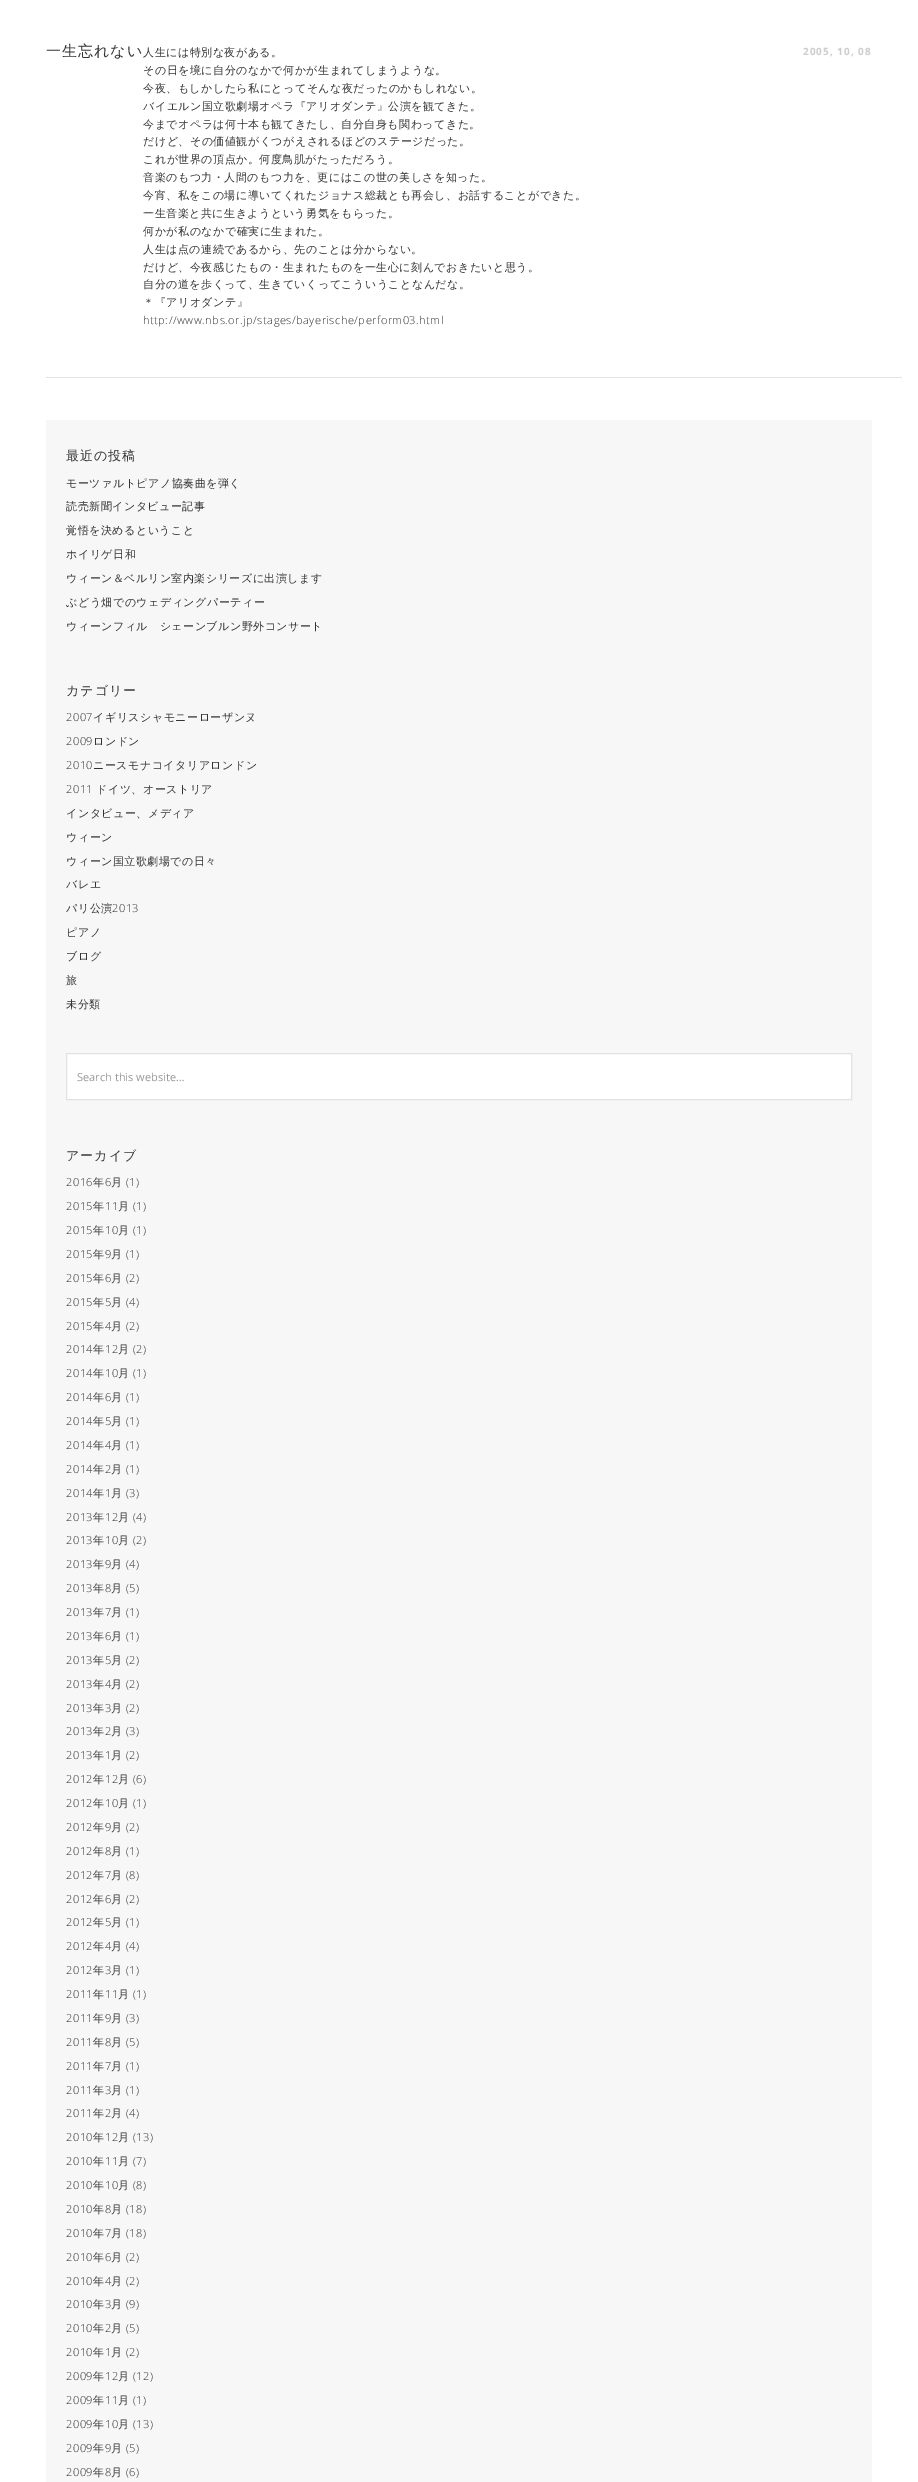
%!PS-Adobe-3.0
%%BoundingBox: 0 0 918 2482
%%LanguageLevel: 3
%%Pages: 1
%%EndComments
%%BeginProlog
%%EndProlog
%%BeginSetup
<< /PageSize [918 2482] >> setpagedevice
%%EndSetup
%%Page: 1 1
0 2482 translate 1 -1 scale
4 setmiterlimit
1 setgray
0 0 918 2482 rectfill
0.886 setgray
46 377 856 1 rectfill
0.969 setgray
46 420 826 2062 rectfill
1 setgray
newpath 66.5 1053.5 moveto 851.5 1053.5 lineto 851.5 1099.5 lineto 66.5 1099.5 lineto closepath gsave fill grestore
0.886 setgray
stroke
/WenQuanYiZenHei-Medium [15 0 0 -15 0 0] selectfont
0.2 setgray
46 56 moveto 1 0 (一生忘れない) ashow
/OpenSans-Bold [10 0 0 -10 0 0] selectfont
0.8 setgray
803 55 moveto 1 0 (2005, 10, 08) ashow
/WenQuanYiZenHei-Medium [11 0 0 -11 0 0] selectfont
0.2 setgray
143 56 moveto 0.5 0 (人生には特別な夜がある。) ashow
143 74 moveto 0.5 0 (その日を境に自分のなかで何かが生まれてしまうような。) ashow
143 92 moveto 0.5 0 (今夜、もしかしたら私にとってそんな夜だったのかもしれない。) ashow
143 110 moveto 0.5 0 (バイエルン国立歌劇場オペラ『アリオダンテ』公演を観てきた。) ashow
143 128 moveto 0.5 0 (今までオペラは何十本も観てきたし、自分自身も関わってきた。) ashow
143 145 moveto 0.5 0 (だけど、その価値観がくつがえされるほどのステージだった。) ashow
143 163 moveto 0.5 0 (これが世界の頂点か。何度鳥肌がたっただろう。) ashow
143 181 moveto 0.5 0 (音楽のもつ力・人間のもつ力を、更にはこの世の美しさを知った。) ashow
143 199 moveto 0.5 0 (今宵、私をこの場に導いてくれたジョナス総裁とも再会し、お話することができた。) ashow
143 217 moveto 0.5 0 (一生音楽と共に生きようという勇気をもらった。) ashow
143 235 moveto 0.5 0 (何かが私のなかで確実に生まれた。) ashow
143 253 moveto 0.5 0 (人生は点の連続であるから、先のことは分からない。) ashow
143 271 moveto 0.5 0 (だけど、今夜感じたもの・生まれたものを一生心に刻んでおきたいと思う。) ashow
143 288 moveto 0.5 0 (自分の道を歩くって、生きていくってこういうことなんだな。) ashow
143 306 moveto 0.5 0 (＊『アリオダンテ』) ashow
/OpenSans-Light [11 0 0 -11 0 0] selectfont
143 324 moveto 0.5 0 (http://www.nbs.or.jp/stages/bayerische/perform03.html) ashow
/WenQuanYiZenHei-Medium [13 0 0 -13 0 0] selectfont
66 460 moveto 1 0 (最近の投稿) ashow
/WenQuanYiZenHei-Medium [11 0 0 -11 0 0] selectfont
66 487 moveto 0.5 0 (モーツァルトピアノ協奏曲を弾く) ashow
66 510 moveto 0.5 0 (読売新聞インタビュー記事) ashow
66 534 moveto 0.5 0 (覚悟を決めるということ) ashow
66 558 moveto 0.5 0 (ホイリゲ日和) ashow
66 582 moveto 0.5 0 (ウィーン＆ベルリン室内楽シリーズに出演します) ashow
66 606 moveto 0.5 0 (ぶどう畑でのウェディングパーティー) ashow
66 630 moveto 0.5 0 (ウィーンフィル　シェーンブルン野外コンサート) ashow
/WenQuanYiZenHei-Medium [13 0 0 -13 0 0] selectfont
66 695 moveto 1 0 (カテゴリー) ashow
/OpenSans-Light [11 0 0 -11 0 0] selectfont
66 721 moveto 0.5 0 (2007) ashow
/WenQuanYiZenHei-Medium [11 0 0 -11 0 0] selectfont
93 721 moveto 0.5 0 (イギリスシャモニーローザンヌ) ashow
/OpenSans-Light [11 0 0 -11 0 0] selectfont
66 745 moveto 0.5 0 (2009) ashow
/WenQuanYiZenHei-Medium [11 0 0 -11 0 0] selectfont
93 745 moveto 0.5 0 (ロンドン) ashow
/OpenSans-Light [11 0 0 -11 0 0] selectfont
66 769 moveto 0.5 0 (2010) ashow
/WenQuanYiZenHei-Medium [11 0 0 -11 0 0] selectfont
93 769 moveto 0.5 0 (ニースモナコイタリアロンドン) ashow
/OpenSans-Light [11 0 0 -11 0 0] selectfont
66 793 moveto 0.5 0 (2011) ashow
/WenQuanYiZenHei-Medium [11 0 0 -11 0 0] selectfont
96 793 moveto 0.5 0 (ドイツ、オーストリア) ashow
66 817 moveto 0.5 0 (インタビュー、メディア) ashow
66 841 moveto 0.5 0 (ウィーン) ashow
66 865 moveto 0.5 0 (ウィーン国立歌劇場での日々) ashow
66 888 moveto 0.5 0 (バレエ) ashow
66 912 moveto 0.5 0 (パリ公演) ashow
/OpenSans-Light [11 0 0 -11 0 0] selectfont
112 912 moveto 0.5 0 (2013) ashow
/WenQuanYiZenHei-Medium [11 0 0 -11 0 0] selectfont
66 936 moveto 0.5 0 (ピアノ) ashow
66 960 moveto 0.5 0 (ブログ) ashow
66 984 moveto 0.5 0 (旅) ashow
66 1008 moveto 0.5 0 (未分類) ashow
/OpenSans-Regular [11 0 0 -11 0 0] selectfont
0.6 setgray
77 1081 moveto (Search this website…) show
/WenQuanYiZenHei-Medium [13 0 0 -13 0 0] selectfont
0.2 setgray
66 1160 moveto 1 0 (アーカイブ) ashow
/OpenSans-Light [11 0 0 -11 0 0] selectfont
66 1186 moveto 0.5 0 (2016) ashow
/WenQuanYiZenHei-Medium [11 0 0 -11 0 0] selectfont
93 1186 moveto 0.5 0 (年) ashow
/OpenSans-Light [11 0 0 -11 0 0] selectfont
105 1186 moveto 0.5 0 (6) ashow
/WenQuanYiZenHei-Medium [11 0 0 -11 0 0] selectfont
111 1186 moveto 0.5 0 (月) ashow
/OpenSans-Light [11 0 0 -11 0 0] selectfont
126 1186 moveto 0.5 0 (\(1\)) ashow
66 1210 moveto 0.5 0 (2015) ashow
/WenQuanYiZenHei-Medium [11 0 0 -11 0 0] selectfont
93 1210 moveto 0.5 0 (年) ashow
/OpenSans-Light [11 0 0 -11 0 0] selectfont
105 1210 moveto 0.5 0 (11) ashow
/WenQuanYiZenHei-Medium [11 0 0 -11 0 0] selectfont
118 1210 moveto 0.5 0 (月) ashow
/OpenSans-Light [11 0 0 -11 0 0] selectfont
133 1210 moveto 0.5 0 (\(1\)) ashow
66 1234 moveto 0.5 0 (2015) ashow
/WenQuanYiZenHei-Medium [11 0 0 -11 0 0] selectfont
93 1234 moveto 0.5 0 (年) ashow
/OpenSans-Light [11 0 0 -11 0 0] selectfont
105 1234 moveto 0.5 0 (10) ashow
/WenQuanYiZenHei-Medium [11 0 0 -11 0 0] selectfont
118 1234 moveto 0.5 0 (月) ashow
/OpenSans-Light [11 0 0 -11 0 0] selectfont
133 1234 moveto 0.5 0 (\(1\)) ashow
66 1258 moveto 0.5 0 (2015) ashow
/WenQuanYiZenHei-Medium [11 0 0 -11 0 0] selectfont
93 1258 moveto 0.5 0 (年) ashow
/OpenSans-Light [11 0 0 -11 0 0] selectfont
105 1258 moveto 0.5 0 (9) ashow
/WenQuanYiZenHei-Medium [11 0 0 -11 0 0] selectfont
111 1258 moveto 0.5 0 (月) ashow
/OpenSans-Light [11 0 0 -11 0 0] selectfont
126 1258 moveto 0.5 0 (\(1\)) ashow
66 1282 moveto 0.5 0 (2015) ashow
/WenQuanYiZenHei-Medium [11 0 0 -11 0 0] selectfont
93 1282 moveto 0.5 0 (年) ashow
/OpenSans-Light [11 0 0 -11 0 0] selectfont
105 1282 moveto 0.5 0 (6) ashow
/WenQuanYiZenHei-Medium [11 0 0 -11 0 0] selectfont
111 1282 moveto 0.5 0 (月) ashow
/OpenSans-Light [11 0 0 -11 0 0] selectfont
126 1282 moveto 0.5 0 (\(2\)) ashow
66 1306 moveto 0.5 0 (2015) ashow
/WenQuanYiZenHei-Medium [11 0 0 -11 0 0] selectfont
93 1306 moveto 0.5 0 (年) ashow
/OpenSans-Light [11 0 0 -11 0 0] selectfont
105 1306 moveto 0.5 0 (5) ashow
/WenQuanYiZenHei-Medium [11 0 0 -11 0 0] selectfont
111 1306 moveto 0.5 0 (月) ashow
/OpenSans-Light [11 0 0 -11 0 0] selectfont
126 1306 moveto 0.5 0 (\(4\)) ashow
66 1330 moveto 0.5 0 (2015) ashow
/WenQuanYiZenHei-Medium [11 0 0 -11 0 0] selectfont
93 1330 moveto 0.5 0 (年) ashow
/OpenSans-Light [11 0 0 -11 0 0] selectfont
105 1330 moveto 0.5 0 (4) ashow
/WenQuanYiZenHei-Medium [11 0 0 -11 0 0] selectfont
111 1330 moveto 0.5 0 (月) ashow
/OpenSans-Light [11 0 0 -11 0 0] selectfont
126 1330 moveto 0.5 0 (\(2\)) ashow
66 1353 moveto 0.5 0 (2014) ashow
/WenQuanYiZenHei-Medium [11 0 0 -11 0 0] selectfont
93 1353 moveto 0.5 0 (年) ashow
/OpenSans-Light [11 0 0 -11 0 0] selectfont
105 1353 moveto 0.5 0 (12) ashow
/WenQuanYiZenHei-Medium [11 0 0 -11 0 0] selectfont
118 1353 moveto 0.5 0 (月) ashow
/OpenSans-Light [11 0 0 -11 0 0] selectfont
133 1353 moveto 0.5 0 (\(2\)) ashow
66 1377 moveto 0.5 0 (2014) ashow
/WenQuanYiZenHei-Medium [11 0 0 -11 0 0] selectfont
93 1377 moveto 0.5 0 (年) ashow
/OpenSans-Light [11 0 0 -11 0 0] selectfont
105 1377 moveto 0.5 0 (10) ashow
/WenQuanYiZenHei-Medium [11 0 0 -11 0 0] selectfont
118 1377 moveto 0.5 0 (月) ashow
/OpenSans-Light [11 0 0 -11 0 0] selectfont
133 1377 moveto 0.5 0 (\(1\)) ashow
66 1401 moveto 0.5 0 (2014) ashow
/WenQuanYiZenHei-Medium [11 0 0 -11 0 0] selectfont
93 1401 moveto 0.5 0 (年) ashow
/OpenSans-Light [11 0 0 -11 0 0] selectfont
105 1401 moveto 0.5 0 (6) ashow
/WenQuanYiZenHei-Medium [11 0 0 -11 0 0] selectfont
111 1401 moveto 0.5 0 (月) ashow
/OpenSans-Light [11 0 0 -11 0 0] selectfont
126 1401 moveto 0.5 0 (\(1\)) ashow
66 1425 moveto 0.5 0 (2014) ashow
/WenQuanYiZenHei-Medium [11 0 0 -11 0 0] selectfont
93 1425 moveto 0.5 0 (年) ashow
/OpenSans-Light [11 0 0 -11 0 0] selectfont
105 1425 moveto 0.5 0 (5) ashow
/WenQuanYiZenHei-Medium [11 0 0 -11 0 0] selectfont
111 1425 moveto 0.5 0 (月) ashow
/OpenSans-Light [11 0 0 -11 0 0] selectfont
126 1425 moveto 0.5 0 (\(1\)) ashow
66 1449 moveto 0.5 0 (2014) ashow
/WenQuanYiZenHei-Medium [11 0 0 -11 0 0] selectfont
93 1449 moveto 0.5 0 (年) ashow
/OpenSans-Light [11 0 0 -11 0 0] selectfont
105 1449 moveto 0.5 0 (4) ashow
/WenQuanYiZenHei-Medium [11 0 0 -11 0 0] selectfont
111 1449 moveto 0.5 0 (月) ashow
/OpenSans-Light [11 0 0 -11 0 0] selectfont
126 1449 moveto 0.5 0 (\(1\)) ashow
66 1473 moveto 0.5 0 (2014) ashow
/WenQuanYiZenHei-Medium [11 0 0 -11 0 0] selectfont
93 1473 moveto 0.5 0 (年) ashow
/OpenSans-Light [11 0 0 -11 0 0] selectfont
105 1473 moveto 0.5 0 (2) ashow
/WenQuanYiZenHei-Medium [11 0 0 -11 0 0] selectfont
111 1473 moveto 0.5 0 (月) ashow
/OpenSans-Light [11 0 0 -11 0 0] selectfont
126 1473 moveto 0.5 0 (\(1\)) ashow
66 1497 moveto 0.5 0 (2014) ashow
/WenQuanYiZenHei-Medium [11 0 0 -11 0 0] selectfont
93 1497 moveto 0.5 0 (年) ashow
/OpenSans-Light [11 0 0 -11 0 0] selectfont
105 1497 moveto 0.5 0 (1) ashow
/WenQuanYiZenHei-Medium [11 0 0 -11 0 0] selectfont
111 1497 moveto 0.5 0 (月) ashow
/OpenSans-Light [11 0 0 -11 0 0] selectfont
126 1497 moveto 0.5 0 (\(3\)) ashow
66 1521 moveto 0.5 0 (2013) ashow
/WenQuanYiZenHei-Medium [11 0 0 -11 0 0] selectfont
93 1521 moveto 0.5 0 (年) ashow
/OpenSans-Light [11 0 0 -11 0 0] selectfont
105 1521 moveto 0.5 0 (12) ashow
/WenQuanYiZenHei-Medium [11 0 0 -11 0 0] selectfont
118 1521 moveto 0.5 0 (月) ashow
/OpenSans-Light [11 0 0 -11 0 0] selectfont
133 1521 moveto 0.5 0 (\(4\)) ashow
66 1544 moveto 0.5 0 (2013) ashow
/WenQuanYiZenHei-Medium [11 0 0 -11 0 0] selectfont
93 1544 moveto 0.5 0 (年) ashow
/OpenSans-Light [11 0 0 -11 0 0] selectfont
105 1544 moveto 0.5 0 (10) ashow
/WenQuanYiZenHei-Medium [11 0 0 -11 0 0] selectfont
118 1544 moveto 0.5 0 (月) ashow
/OpenSans-Light [11 0 0 -11 0 0] selectfont
133 1544 moveto 0.5 0 (\(2\)) ashow
66 1568 moveto 0.5 0 (2013) ashow
/WenQuanYiZenHei-Medium [11 0 0 -11 0 0] selectfont
93 1568 moveto 0.5 0 (年) ashow
/OpenSans-Light [11 0 0 -11 0 0] selectfont
105 1568 moveto 0.5 0 (9) ashow
/WenQuanYiZenHei-Medium [11 0 0 -11 0 0] selectfont
111 1568 moveto 0.5 0 (月) ashow
/OpenSans-Light [11 0 0 -11 0 0] selectfont
126 1568 moveto 0.5 0 (\(4\)) ashow
66 1592 moveto 0.5 0 (2013) ashow
/WenQuanYiZenHei-Medium [11 0 0 -11 0 0] selectfont
93 1592 moveto 0.5 0 (年) ashow
/OpenSans-Light [11 0 0 -11 0 0] selectfont
105 1592 moveto 0.5 0 (8) ashow
/WenQuanYiZenHei-Medium [11 0 0 -11 0 0] selectfont
111 1592 moveto 0.5 0 (月) ashow
/OpenSans-Light [11 0 0 -11 0 0] selectfont
126 1592 moveto 0.5 0 (\(5\)) ashow
66 1616 moveto 0.5 0 (2013) ashow
/WenQuanYiZenHei-Medium [11 0 0 -11 0 0] selectfont
93 1616 moveto 0.5 0 (年) ashow
/OpenSans-Light [11 0 0 -11 0 0] selectfont
105 1616 moveto 0.5 0 (7) ashow
/WenQuanYiZenHei-Medium [11 0 0 -11 0 0] selectfont
111 1616 moveto 0.5 0 (月) ashow
/OpenSans-Light [11 0 0 -11 0 0] selectfont
126 1616 moveto 0.5 0 (\(1\)) ashow
66 1640 moveto 0.5 0 (2013) ashow
/WenQuanYiZenHei-Medium [11 0 0 -11 0 0] selectfont
93 1640 moveto 0.5 0 (年) ashow
/OpenSans-Light [11 0 0 -11 0 0] selectfont
105 1640 moveto 0.5 0 (6) ashow
/WenQuanYiZenHei-Medium [11 0 0 -11 0 0] selectfont
111 1640 moveto 0.5 0 (月) ashow
/OpenSans-Light [11 0 0 -11 0 0] selectfont
126 1640 moveto 0.5 0 (\(1\)) ashow
66 1664 moveto 0.5 0 (2013) ashow
/WenQuanYiZenHei-Medium [11 0 0 -11 0 0] selectfont
93 1664 moveto 0.5 0 (年) ashow
/OpenSans-Light [11 0 0 -11 0 0] selectfont
105 1664 moveto 0.5 0 (5) ashow
/WenQuanYiZenHei-Medium [11 0 0 -11 0 0] selectfont
111 1664 moveto 0.5 0 (月) ashow
/OpenSans-Light [11 0 0 -11 0 0] selectfont
126 1664 moveto 0.5 0 (\(2\)) ashow
66 1688 moveto 0.5 0 (2013) ashow
/WenQuanYiZenHei-Medium [11 0 0 -11 0 0] selectfont
93 1688 moveto 0.5 0 (年) ashow
/OpenSans-Light [11 0 0 -11 0 0] selectfont
105 1688 moveto 0.5 0 (4) ashow
/WenQuanYiZenHei-Medium [11 0 0 -11 0 0] selectfont
111 1688 moveto 0.5 0 (月) ashow
/OpenSans-Light [11 0 0 -11 0 0] selectfont
126 1688 moveto 0.5 0 (\(2\)) ashow
66 1712 moveto 0.5 0 (2013) ashow
/WenQuanYiZenHei-Medium [11 0 0 -11 0 0] selectfont
93 1712 moveto 0.5 0 (年) ashow
/OpenSans-Light [11 0 0 -11 0 0] selectfont
105 1712 moveto 0.5 0 (3) ashow
/WenQuanYiZenHei-Medium [11 0 0 -11 0 0] selectfont
111 1712 moveto 0.5 0 (月) ashow
/OpenSans-Light [11 0 0 -11 0 0] selectfont
126 1712 moveto 0.5 0 (\(2\)) ashow
66 1735 moveto 0.5 0 (2013) ashow
/WenQuanYiZenHei-Medium [11 0 0 -11 0 0] selectfont
93 1735 moveto 0.5 0 (年) ashow
/OpenSans-Light [11 0 0 -11 0 0] selectfont
105 1735 moveto 0.5 0 (2) ashow
/WenQuanYiZenHei-Medium [11 0 0 -11 0 0] selectfont
111 1735 moveto 0.5 0 (月) ashow
/OpenSans-Light [11 0 0 -11 0 0] selectfont
126 1735 moveto 0.5 0 (\(3\)) ashow
66 1759 moveto 0.5 0 (2013) ashow
/WenQuanYiZenHei-Medium [11 0 0 -11 0 0] selectfont
93 1759 moveto 0.5 0 (年) ashow
/OpenSans-Light [11 0 0 -11 0 0] selectfont
105 1759 moveto 0.5 0 (1) ashow
/WenQuanYiZenHei-Medium [11 0 0 -11 0 0] selectfont
111 1759 moveto 0.5 0 (月) ashow
/OpenSans-Light [11 0 0 -11 0 0] selectfont
126 1759 moveto 0.5 0 (\(2\)) ashow
66 1783 moveto 0.5 0 (2012) ashow
/WenQuanYiZenHei-Medium [11 0 0 -11 0 0] selectfont
93 1783 moveto 0.5 0 (年) ashow
/OpenSans-Light [11 0 0 -11 0 0] selectfont
105 1783 moveto 0.5 0 (12) ashow
/WenQuanYiZenHei-Medium [11 0 0 -11 0 0] selectfont
118 1783 moveto 0.5 0 (月) ashow
/OpenSans-Light [11 0 0 -11 0 0] selectfont
133 1783 moveto 0.5 0 (\(6\)) ashow
66 1807 moveto 0.5 0 (2012) ashow
/WenQuanYiZenHei-Medium [11 0 0 -11 0 0] selectfont
93 1807 moveto 0.5 0 (年) ashow
/OpenSans-Light [11 0 0 -11 0 0] selectfont
105 1807 moveto 0.5 0 (10) ashow
/WenQuanYiZenHei-Medium [11 0 0 -11 0 0] selectfont
118 1807 moveto 0.5 0 (月) ashow
/OpenSans-Light [11 0 0 -11 0 0] selectfont
133 1807 moveto 0.5 0 (\(1\)) ashow
66 1831 moveto 0.5 0 (2012) ashow
/WenQuanYiZenHei-Medium [11 0 0 -11 0 0] selectfont
93 1831 moveto 0.5 0 (年) ashow
/OpenSans-Light [11 0 0 -11 0 0] selectfont
105 1831 moveto 0.5 0 (9) ashow
/WenQuanYiZenHei-Medium [11 0 0 -11 0 0] selectfont
111 1831 moveto 0.5 0 (月) ashow
/OpenSans-Light [11 0 0 -11 0 0] selectfont
126 1831 moveto 0.5 0 (\(2\)) ashow
66 1855 moveto 0.5 0 (2012) ashow
/WenQuanYiZenHei-Medium [11 0 0 -11 0 0] selectfont
93 1855 moveto 0.5 0 (年) ashow
/OpenSans-Light [11 0 0 -11 0 0] selectfont
105 1855 moveto 0.5 0 (8) ashow
/WenQuanYiZenHei-Medium [11 0 0 -11 0 0] selectfont
111 1855 moveto 0.5 0 (月) ashow
/OpenSans-Light [11 0 0 -11 0 0] selectfont
126 1855 moveto 0.5 0 (\(1\)) ashow
66 1879 moveto 0.5 0 (2012) ashow
/WenQuanYiZenHei-Medium [11 0 0 -11 0 0] selectfont
93 1879 moveto 0.5 0 (年) ashow
/OpenSans-Light [11 0 0 -11 0 0] selectfont
105 1879 moveto 0.5 0 (7) ashow
/WenQuanYiZenHei-Medium [11 0 0 -11 0 0] selectfont
111 1879 moveto 0.5 0 (月) ashow
/OpenSans-Light [11 0 0 -11 0 0] selectfont
126 1879 moveto 0.5 0 (\(8\)) ashow
66 1903 moveto 0.5 0 (2012) ashow
/WenQuanYiZenHei-Medium [11 0 0 -11 0 0] selectfont
93 1903 moveto 0.5 0 (年) ashow
/OpenSans-Light [11 0 0 -11 0 0] selectfont
105 1903 moveto 0.5 0 (6) ashow
/WenQuanYiZenHei-Medium [11 0 0 -11 0 0] selectfont
111 1903 moveto 0.5 0 (月) ashow
/OpenSans-Light [11 0 0 -11 0 0] selectfont
126 1903 moveto 0.5 0 (\(2\)) ashow
66 1926 moveto 0.5 0 (2012) ashow
/WenQuanYiZenHei-Medium [11 0 0 -11 0 0] selectfont
93 1926 moveto 0.5 0 (年) ashow
/OpenSans-Light [11 0 0 -11 0 0] selectfont
105 1926 moveto 0.5 0 (5) ashow
/WenQuanYiZenHei-Medium [11 0 0 -11 0 0] selectfont
111 1926 moveto 0.5 0 (月) ashow
/OpenSans-Light [11 0 0 -11 0 0] selectfont
126 1926 moveto 0.5 0 (\(1\)) ashow
66 1950 moveto 0.5 0 (2012) ashow
/WenQuanYiZenHei-Medium [11 0 0 -11 0 0] selectfont
93 1950 moveto 0.5 0 (年) ashow
/OpenSans-Light [11 0 0 -11 0 0] selectfont
105 1950 moveto 0.5 0 (4) ashow
/WenQuanYiZenHei-Medium [11 0 0 -11 0 0] selectfont
111 1950 moveto 0.5 0 (月) ashow
/OpenSans-Light [11 0 0 -11 0 0] selectfont
126 1950 moveto 0.5 0 (\(4\)) ashow
66 1974 moveto 0.5 0 (2012) ashow
/WenQuanYiZenHei-Medium [11 0 0 -11 0 0] selectfont
93 1974 moveto 0.5 0 (年) ashow
/OpenSans-Light [11 0 0 -11 0 0] selectfont
105 1974 moveto 0.5 0 (3) ashow
/WenQuanYiZenHei-Medium [11 0 0 -11 0 0] selectfont
111 1974 moveto 0.5 0 (月) ashow
/OpenSans-Light [11 0 0 -11 0 0] selectfont
126 1974 moveto 0.5 0 (\(1\)) ashow
66 1998 moveto 0.5 0 (2011) ashow
/WenQuanYiZenHei-Medium [11 0 0 -11 0 0] selectfont
93 1998 moveto 0.5 0 (年) ashow
/OpenSans-Light [11 0 0 -11 0 0] selectfont
105 1998 moveto 0.5 0 (11) ashow
/WenQuanYiZenHei-Medium [11 0 0 -11 0 0] selectfont
118 1998 moveto 0.5 0 (月) ashow
/OpenSans-Light [11 0 0 -11 0 0] selectfont
133 1998 moveto 0.5 0 (\(1\)) ashow
66 2022 moveto 0.5 0 (2011) ashow
/WenQuanYiZenHei-Medium [11 0 0 -11 0 0] selectfont
93 2022 moveto 0.5 0 (年) ashow
/OpenSans-Light [11 0 0 -11 0 0] selectfont
105 2022 moveto 0.5 0 (9) ashow
/WenQuanYiZenHei-Medium [11 0 0 -11 0 0] selectfont
111 2022 moveto 0.5 0 (月) ashow
/OpenSans-Light [11 0 0 -11 0 0] selectfont
126 2022 moveto 0.5 0 (\(3\)) ashow
66 2046 moveto 0.5 0 (2011) ashow
/WenQuanYiZenHei-Medium [11 0 0 -11 0 0] selectfont
93 2046 moveto 0.5 0 (年) ashow
/OpenSans-Light [11 0 0 -11 0 0] selectfont
105 2046 moveto 0.5 0 (8) ashow
/WenQuanYiZenHei-Medium [11 0 0 -11 0 0] selectfont
111 2046 moveto 0.5 0 (月) ashow
/OpenSans-Light [11 0 0 -11 0 0] selectfont
126 2046 moveto 0.5 0 (\(5\)) ashow
66 2070 moveto 0.5 0 (2011) ashow
/WenQuanYiZenHei-Medium [11 0 0 -11 0 0] selectfont
93 2070 moveto 0.5 0 (年) ashow
/OpenSans-Light [11 0 0 -11 0 0] selectfont
105 2070 moveto 0.5 0 (7) ashow
/WenQuanYiZenHei-Medium [11 0 0 -11 0 0] selectfont
111 2070 moveto 0.5 0 (月) ashow
/OpenSans-Light [11 0 0 -11 0 0] selectfont
126 2070 moveto 0.5 0 (\(1\)) ashow
66 2094 moveto 0.5 0 (2011) ashow
/WenQuanYiZenHei-Medium [11 0 0 -11 0 0] selectfont
93 2094 moveto 0.5 0 (年) ashow
/OpenSans-Light [11 0 0 -11 0 0] selectfont
105 2094 moveto 0.5 0 (3) ashow
/WenQuanYiZenHei-Medium [11 0 0 -11 0 0] selectfont
111 2094 moveto 0.5 0 (月) ashow
/OpenSans-Light [11 0 0 -11 0 0] selectfont
126 2094 moveto 0.5 0 (\(1\)) ashow
66 2117 moveto 0.5 0 (2011) ashow
/WenQuanYiZenHei-Medium [11 0 0 -11 0 0] selectfont
93 2117 moveto 0.5 0 (年) ashow
/OpenSans-Light [11 0 0 -11 0 0] selectfont
105 2117 moveto 0.5 0 (2) ashow
/WenQuanYiZenHei-Medium [11 0 0 -11 0 0] selectfont
111 2117 moveto 0.5 0 (月) ashow
/OpenSans-Light [11 0 0 -11 0 0] selectfont
126 2117 moveto 0.5 0 (\(4\)) ashow
66 2141 moveto 0.5 0 (2010) ashow
/WenQuanYiZenHei-Medium [11 0 0 -11 0 0] selectfont
93 2141 moveto 0.5 0 (年) ashow
/OpenSans-Light [11 0 0 -11 0 0] selectfont
105 2141 moveto 0.5 0 (12) ashow
/WenQuanYiZenHei-Medium [11 0 0 -11 0 0] selectfont
118 2141 moveto 0.5 0 (月) ashow
/OpenSans-Light [11 0 0 -11 0 0] selectfont
133 2141 moveto 0.5 0 (\(13\)) ashow
66 2165 moveto 0.5 0 (2010) ashow
/WenQuanYiZenHei-Medium [11 0 0 -11 0 0] selectfont
93 2165 moveto 0.5 0 (年) ashow
/OpenSans-Light [11 0 0 -11 0 0] selectfont
105 2165 moveto 0.5 0 (11) ashow
/WenQuanYiZenHei-Medium [11 0 0 -11 0 0] selectfont
118 2165 moveto 0.5 0 (月) ashow
/OpenSans-Light [11 0 0 -11 0 0] selectfont
133 2165 moveto 0.5 0 (\(7\)) ashow
66 2189 moveto 0.5 0 (2010) ashow
/WenQuanYiZenHei-Medium [11 0 0 -11 0 0] selectfont
93 2189 moveto 0.5 0 (年) ashow
/OpenSans-Light [11 0 0 -11 0 0] selectfont
105 2189 moveto 0.5 0 (10) ashow
/WenQuanYiZenHei-Medium [11 0 0 -11 0 0] selectfont
118 2189 moveto 0.5 0 (月) ashow
/OpenSans-Light [11 0 0 -11 0 0] selectfont
133 2189 moveto 0.5 0 (\(8\)) ashow
66 2213 moveto 0.5 0 (2010) ashow
/WenQuanYiZenHei-Medium [11 0 0 -11 0 0] selectfont
93 2213 moveto 0.5 0 (年) ashow
/OpenSans-Light [11 0 0 -11 0 0] selectfont
105 2213 moveto 0.5 0 (8) ashow
/WenQuanYiZenHei-Medium [11 0 0 -11 0 0] selectfont
111 2213 moveto 0.5 0 (月) ashow
/OpenSans-Light [11 0 0 -11 0 0] selectfont
126 2213 moveto 0.5 0 (\(18\)) ashow
66 2237 moveto 0.5 0 (2010) ashow
/WenQuanYiZenHei-Medium [11 0 0 -11 0 0] selectfont
93 2237 moveto 0.5 0 (年) ashow
/OpenSans-Light [11 0 0 -11 0 0] selectfont
105 2237 moveto 0.5 0 (7) ashow
/WenQuanYiZenHei-Medium [11 0 0 -11 0 0] selectfont
111 2237 moveto 0.5 0 (月) ashow
/OpenSans-Light [11 0 0 -11 0 0] selectfont
126 2237 moveto 0.5 0 (\(18\)) ashow
66 2261 moveto 0.5 0 (2010) ashow
/WenQuanYiZenHei-Medium [11 0 0 -11 0 0] selectfont
93 2261 moveto 0.5 0 (年) ashow
/OpenSans-Light [11 0 0 -11 0 0] selectfont
105 2261 moveto 0.5 0 (6) ashow
/WenQuanYiZenHei-Medium [11 0 0 -11 0 0] selectfont
111 2261 moveto 0.5 0 (月) ashow
/OpenSans-Light [11 0 0 -11 0 0] selectfont
126 2261 moveto 0.5 0 (\(2\)) ashow
66 2285 moveto 0.5 0 (2010) ashow
/WenQuanYiZenHei-Medium [11 0 0 -11 0 0] selectfont
93 2285 moveto 0.5 0 (年) ashow
/OpenSans-Light [11 0 0 -11 0 0] selectfont
105 2285 moveto 0.5 0 (4) ashow
/WenQuanYiZenHei-Medium [11 0 0 -11 0 0] selectfont
111 2285 moveto 0.5 0 (月) ashow
/OpenSans-Light [11 0 0 -11 0 0] selectfont
126 2285 moveto 0.5 0 (\(2\)) ashow
66 2308 moveto 0.5 0 (2010) ashow
/WenQuanYiZenHei-Medium [11 0 0 -11 0 0] selectfont
93 2308 moveto 0.5 0 (年) ashow
/OpenSans-Light [11 0 0 -11 0 0] selectfont
105 2308 moveto 0.5 0 (3) ashow
/WenQuanYiZenHei-Medium [11 0 0 -11 0 0] selectfont
111 2308 moveto 0.5 0 (月) ashow
/OpenSans-Light [11 0 0 -11 0 0] selectfont
126 2308 moveto 0.5 0 (\(9\)) ashow
66 2332 moveto 0.5 0 (2010) ashow
/WenQuanYiZenHei-Medium [11 0 0 -11 0 0] selectfont
93 2332 moveto 0.5 0 (年) ashow
/OpenSans-Light [11 0 0 -11 0 0] selectfont
105 2332 moveto 0.5 0 (2) ashow
/WenQuanYiZenHei-Medium [11 0 0 -11 0 0] selectfont
111 2332 moveto 0.5 0 (月) ashow
/OpenSans-Light [11 0 0 -11 0 0] selectfont
126 2332 moveto 0.5 0 (\(5\)) ashow
66 2356 moveto 0.5 0 (2010) ashow
/WenQuanYiZenHei-Medium [11 0 0 -11 0 0] selectfont
93 2356 moveto 0.5 0 (年) ashow
/OpenSans-Light [11 0 0 -11 0 0] selectfont
105 2356 moveto 0.5 0 (1) ashow
/WenQuanYiZenHei-Medium [11 0 0 -11 0 0] selectfont
111 2356 moveto 0.5 0 (月) ashow
/OpenSans-Light [11 0 0 -11 0 0] selectfont
126 2356 moveto 0.5 0 (\(2\)) ashow
66 2380 moveto 0.5 0 (2009) ashow
/WenQuanYiZenHei-Medium [11 0 0 -11 0 0] selectfont
93 2380 moveto 0.5 0 (年) ashow
/OpenSans-Light [11 0 0 -11 0 0] selectfont
105 2380 moveto 0.5 0 (12) ashow
/WenQuanYiZenHei-Medium [11 0 0 -11 0 0] selectfont
118 2380 moveto 0.5 0 (月) ashow
/OpenSans-Light [11 0 0 -11 0 0] selectfont
133 2380 moveto 0.5 0 (\(12\)) ashow
66 2404 moveto 0.5 0 (2009) ashow
/WenQuanYiZenHei-Medium [11 0 0 -11 0 0] selectfont
93 2404 moveto 0.5 0 (年) ashow
/OpenSans-Light [11 0 0 -11 0 0] selectfont
105 2404 moveto 0.5 0 (11) ashow
/WenQuanYiZenHei-Medium [11 0 0 -11 0 0] selectfont
118 2404 moveto 0.5 0 (月) ashow
/OpenSans-Light [11 0 0 -11 0 0] selectfont
133 2404 moveto 0.5 0 (\(1\)) ashow
66 2428 moveto 0.5 0 (2009) ashow
/WenQuanYiZenHei-Medium [11 0 0 -11 0 0] selectfont
93 2428 moveto 0.5 0 (年) ashow
/OpenSans-Light [11 0 0 -11 0 0] selectfont
105 2428 moveto 0.5 0 (10) ashow
/WenQuanYiZenHei-Medium [11 0 0 -11 0 0] selectfont
118 2428 moveto 0.5 0 (月) ashow
/OpenSans-Light [11 0 0 -11 0 0] selectfont
133 2428 moveto 0.5 0 (\(13\)) ashow
66 2452 moveto 0.5 0 (2009) ashow
/WenQuanYiZenHei-Medium [11 0 0 -11 0 0] selectfont
93 2452 moveto 0.5 0 (年) ashow
/OpenSans-Light [11 0 0 -11 0 0] selectfont
105 2452 moveto 0.5 0 (9) ashow
/WenQuanYiZenHei-Medium [11 0 0 -11 0 0] selectfont
111 2452 moveto 0.5 0 (月) ashow
/OpenSans-Light [11 0 0 -11 0 0] selectfont
126 2452 moveto 0.5 0 (\(5\)) ashow
66 2476 moveto 0.5 0 (2009) ashow
/WenQuanYiZenHei-Medium [11 0 0 -11 0 0] selectfont
93 2476 moveto 0.5 0 (年) ashow
/OpenSans-Light [11 0 0 -11 0 0] selectfont
105 2476 moveto 0.5 0 (8) ashow
/WenQuanYiZenHei-Medium [11 0 0 -11 0 0] selectfont
111 2476 moveto 0.5 0 (月) ashow
/OpenSans-Light [11 0 0 -11 0 0] selectfont
126 2476 moveto 0.5 0 (\(6\)) ashow
showpage
%%EOF
